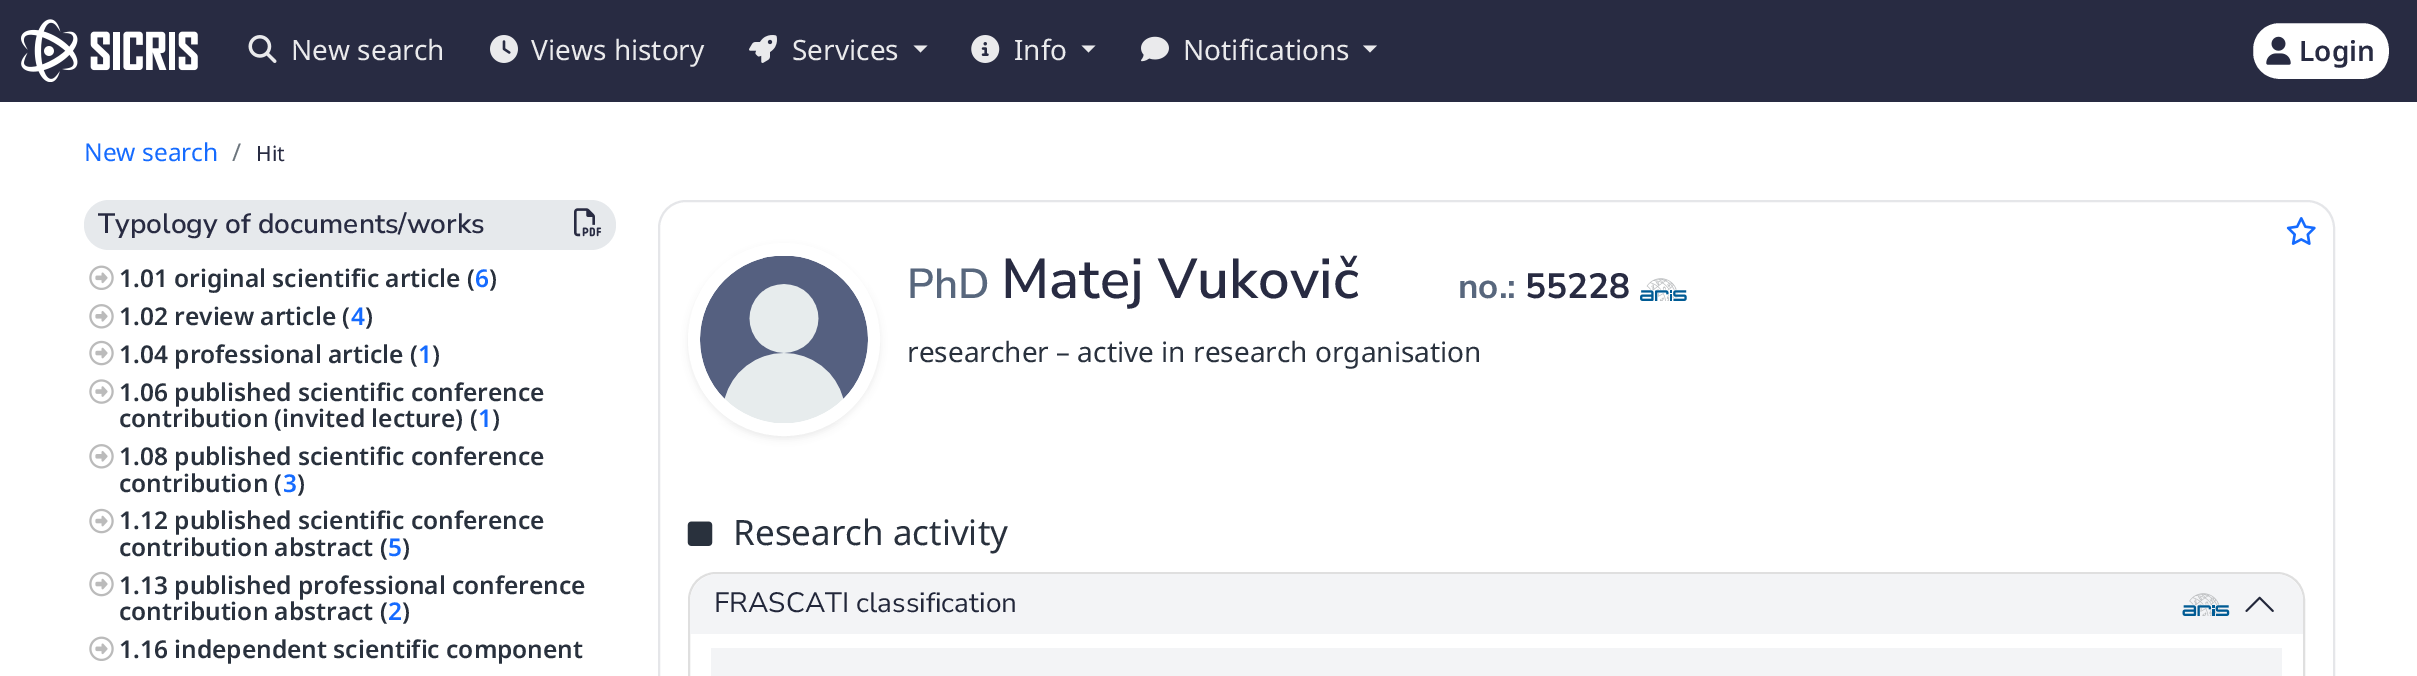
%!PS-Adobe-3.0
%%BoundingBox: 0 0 2417 676
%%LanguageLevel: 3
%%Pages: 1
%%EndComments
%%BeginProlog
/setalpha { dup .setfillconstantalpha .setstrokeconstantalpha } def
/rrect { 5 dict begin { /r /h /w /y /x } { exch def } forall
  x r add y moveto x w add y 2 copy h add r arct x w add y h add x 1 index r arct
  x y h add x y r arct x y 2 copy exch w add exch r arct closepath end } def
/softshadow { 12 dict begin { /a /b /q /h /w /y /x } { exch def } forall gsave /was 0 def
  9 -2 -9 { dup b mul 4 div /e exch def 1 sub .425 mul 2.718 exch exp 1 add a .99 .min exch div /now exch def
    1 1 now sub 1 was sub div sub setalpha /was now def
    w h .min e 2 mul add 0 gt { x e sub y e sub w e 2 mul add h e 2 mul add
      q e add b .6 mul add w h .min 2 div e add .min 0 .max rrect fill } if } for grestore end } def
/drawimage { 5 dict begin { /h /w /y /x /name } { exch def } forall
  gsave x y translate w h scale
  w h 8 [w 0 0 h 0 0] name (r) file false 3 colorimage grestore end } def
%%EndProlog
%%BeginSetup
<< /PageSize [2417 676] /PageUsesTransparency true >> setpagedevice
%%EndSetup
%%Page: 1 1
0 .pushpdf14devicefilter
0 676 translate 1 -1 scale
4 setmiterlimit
1 setgray
0 0 2417 676 rectfill
0.157 0.169 0.259 setrgbcolor
0 0 2417 102 rectfill
(images/1.raw) 21 19 177 63 drawimage
(images/2.raw) 248 35 29 28 drawimage
(images/3.raw) 490 35 28 28 drawimage
(images/4.raw) 749 35 28 28 drawimage
0.918 0.918 0.925 setrgbcolor
newpath 913.5 45.5 moveto 927.5 45.5 lineto 920.5 52.5 lineto closepath fill
(images/5.raw) 971 35 29 28 drawimage
newpath 1081.5 45.5 moveto 1095.5 45.5 lineto 1088.5 52.5 lineto closepath fill
(images/6.raw) 1141 36 28 26 drawimage
newpath 1363 45.5 moveto 1377 45.5 lineto 1370 52.5 lineto closepath fill
1 setgray
2252 22 138 58 27 rrect gsave fill grestore
0.157 0.169 0.259 setrgbcolor
2 setlinewidth
stroke
(images/7.raw) 2266 36 25 29 drawimage
0.902 0.914 0.925 setrgbcolor
84 200 532 50 25 rrect fill
(images/8.raw) 574 208 28 29 drawimage
(images/9.raw) 89 265 25 25 drawimage
(images/10.raw) 89 304 25 25 drawimage
(images/11.raw) 89 340 25 26 drawimage
(images/12.raw) 89 379 25 25 drawimage
(images/10.raw) 89 444 25 25 drawimage
(images/11.raw) 89 508 25 26 drawimage
(images/11.raw) 89 571 25 26 drawimage
(images/9.raw) 89 636 25 25 drawimage
0.898 0.902 0.914 setrgbcolor
659 201 1675 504 27 rrect stroke
(images/13.raw) 2286 217 30 28 drawimage
0 setgray
688 247 192 192 96 3.5 0.07 softshadow
1 setgray
690.5 245.5 187 188 93.5 rrect gsave fill grestore
5 setlinewidth
stroke
(images/14.raw) 700 256 168 167 drawimage
(images/15.raw) 1640 278 47 23 drawimage
(images/16.raw) 687 521 26 25 drawimage
0.875 setgray
2 setlinewidth
689 573 1615 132 27 rrect stroke
0.953 0.957 0.965 setrgbcolor
newpath 718 574 moveto 2275 574 lineto 2290.5 574 2303 586.5 2303 602 curveto 2303 634 lineto 690 634 lineto 690 602 lineto 690 586.5 702.5 574 718 574 curveto closepath fill
(images/17.raw) 2182 593 48 23 drawimage
(images/18.raw) 2245 596 29 16 drawimage
711 648 1571 28 rectfill
/NotoSans-Regular [28 0 0 -28 0 0] selectfont
0.918 0.918 0.925 setrgbcolor
291 60 moveto (New search) show
531 60 moveto (Views history) show
792 60 moveto (Services) show
1014 60 moveto (Info) show
1183 60 moveto (Notifications) show
/NotoSans-SemiBold [28 0 0 -28 0 0] selectfont
0.157 0.169 0.259 setrgbcolor
2299 61 moveto (Login) show
/NotoSans-Regular [24.5 0 0 -24.5 0 0] selectfont
0.082 0.42 1 setrgbcolor
84 161 moveto (New search) show
0.424 0.459 0.49 setrgbcolor
232 161 moveto (/) show
/NotoSans-Regular [21 0 0 -21 0 0] selectfont
0.157 0.169 0.259 setrgbcolor
256 161 moveto (Hit) show
/NunitoSans-SemiBold [28 0 0 -28 0 0] selectfont
98 233 moveto (Typology of documents/works) show
/NotoSans-SemiBold [24.5 0 0 -24.5 0 0] selectfont
0.161 0.192 0.239 setrgbcolor
119 287 moveto (1.01 original scientific article \() show
0.082 0.42 1 setrgbcolor
475 287 moveto (6) show
0.161 0.192 0.239 setrgbcolor
489 287 moveto (\)) show
119 325 moveto (1.02 review article \() show
0.082 0.42 1 setrgbcolor
351 325 moveto (4) show
0.161 0.192 0.239 setrgbcolor
365 325 moveto (\)) show
119 363 moveto (1.04 professional article \() show
0.082 0.42 1 setrgbcolor
418 363 moveto (1) show
0.161 0.192 0.239 setrgbcolor
432 363 moveto (\)) show
119 401 moveto (1.06 published scientific conference) show
119 427 moveto (contribution \(invited lecture\) \() show
0.082 0.42 1 setrgbcolor
478 427 moveto (1) show
0.161 0.192 0.239 setrgbcolor
492 427 moveto (\)) show
119 465 moveto (1.08 published scientific conference) show
119 492 moveto (contribution \() show
0.082 0.42 1 setrgbcolor
283 492 moveto (3) show
0.161 0.192 0.239 setrgbcolor
297 492 moveto (\)) show
119 529 moveto (1.12 published scientific conference) show
119 556 moveto (contribution abstract \() show
0.082 0.42 1 setrgbcolor
388 556 moveto (5) show
0.161 0.192 0.239 setrgbcolor
402 556 moveto (\)) show
119 594 moveto (1.13 published professional conference) show
119 620 moveto (contribution abstract \() show
0.082 0.42 1 setrgbcolor
388 620 moveto (2) show
0.161 0.192 0.239 setrgbcolor
402 620 moveto (\)) show
119 658 moveto (1.16 independent scientific component) show
/NunitoSans-SemiBold [42 0 0 -42 0 0] selectfont
0.345 0.404 0.49 setrgbcolor
907 298 moveto (PhD) show
/NunitoSans-SemiBold [56 0 0 -56 0 0] selectfont
0.157 0.169 0.259 setrgbcolor
1001 298 moveto (Matej Vukovič) show
/NunitoSans-Bold [35 0 0 -35 0 0] selectfont
0.345 0.404 0.49 setrgbcolor
1458 298 moveto (no.:) show
0.157 0.169 0.259 setrgbcolor
1525 298 moveto (55228) show
/NotoSans-Regular [28 0 0 -28 0 0] selectfont
0.161 0.192 0.239 setrgbcolor
907 362 moveto (researcher – active in research organisation) show
/NotoSans-Regular [35 0 0 -35 0 0] selectfont
733 545 moveto (Research activity) show
/NunitoSans-Regular [28 0 0 -28 0 0] selectfont
0.133 0.153 0.227 setrgbcolor
714 612 moveto (FRASCATI classification) show
.poppdf14devicefilter showpage
%%EOF
